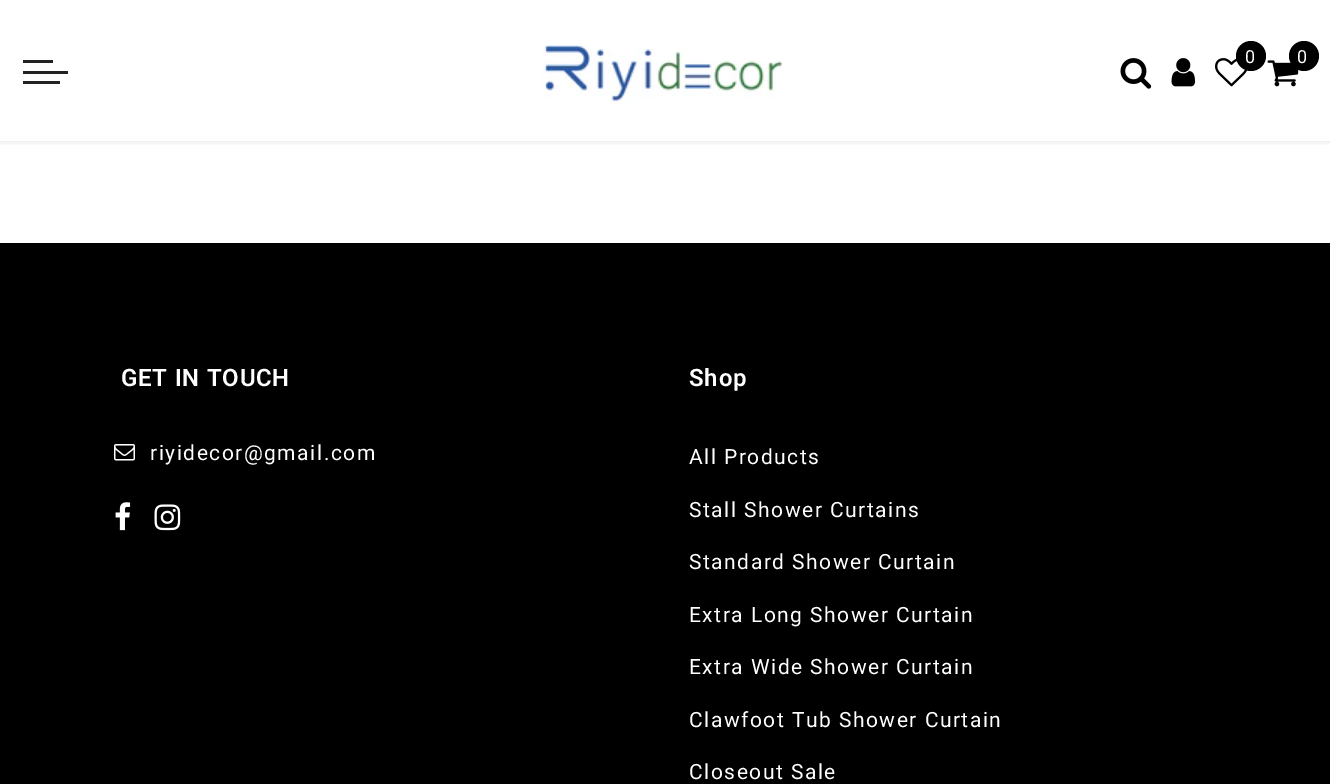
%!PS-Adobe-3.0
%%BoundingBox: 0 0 1330 784
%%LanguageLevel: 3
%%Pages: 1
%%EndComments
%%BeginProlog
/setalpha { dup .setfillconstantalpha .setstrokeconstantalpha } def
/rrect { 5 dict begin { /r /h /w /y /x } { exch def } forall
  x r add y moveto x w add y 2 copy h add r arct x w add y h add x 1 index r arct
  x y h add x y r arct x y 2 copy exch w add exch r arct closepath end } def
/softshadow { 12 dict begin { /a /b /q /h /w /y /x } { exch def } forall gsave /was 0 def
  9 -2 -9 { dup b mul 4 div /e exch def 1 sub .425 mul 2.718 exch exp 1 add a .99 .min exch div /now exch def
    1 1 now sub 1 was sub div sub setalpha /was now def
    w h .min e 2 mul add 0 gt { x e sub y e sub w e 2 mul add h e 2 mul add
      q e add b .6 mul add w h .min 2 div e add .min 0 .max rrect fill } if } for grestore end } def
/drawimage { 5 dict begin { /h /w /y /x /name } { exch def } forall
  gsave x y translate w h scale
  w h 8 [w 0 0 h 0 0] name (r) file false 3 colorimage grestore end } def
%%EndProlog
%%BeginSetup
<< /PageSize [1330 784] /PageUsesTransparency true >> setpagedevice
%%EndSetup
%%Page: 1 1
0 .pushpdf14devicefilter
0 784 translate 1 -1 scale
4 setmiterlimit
1 setgray
0 0 1330 784 rectfill
gsave
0 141 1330 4 rectclip
0 setgray
0 0 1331 141 0 4 0.12 softshadow
grestore
(images/1.raw) 542 44 240 60 drawimage
(images/2.raw) 1120 58 32 31 drawimage
(images/3.raw) 1171 58 25 29 drawimage
(images/4.raw) 1215 58 33 29 drawimage
0 setgray
newpath 1251 56 15 0 360 arc closepath fill
(images/5.raw) 1267 60 32 27 drawimage
newpath 1304 56 15 0 360 arc closepath fill
0.133 setgray
23 60 30 3 rectfill
23 71 45 3 rectfill
23 81 37 3 rectfill
0 setgray
0 243 1330 541 rectfill
(images/6.raw) 114 444 21 17 drawimage
(images/7.raw) 115 502 16 29 drawimage
(images/8.raw) 154 504 27 27 drawimage
/Roboto-Regular [18 0 0 -18 0 0] selectfont
1 setgray
1245 63 moveto 1.5 0 (0) ashow
1297 63 moveto 1.5 0 (0) ashow
/Roboto-SemiBold [24 0 0 -24 0 0] selectfont
121 386 moveto 0.75 0 (GET IN TOUCH) ashow
/Roboto-Regular [21 0 0 -21 0 0] selectfont
150 460 moveto 1.5 0 (riyidecor@gmail.com) ashow
/Roboto-SemiBold [24 0 0 -24 0 0] selectfont
689 386 moveto 0.75 0 (Shop) ashow
/Roboto-Regular [21 0 0 -21 0 0] selectfont
689 464 moveto 1.5 0 (All Products) ashow
689 517 moveto 1.5 0 (Stall Shower Curtains) ashow
689 569 moveto 1.5 0 (Standard Shower Curtain) ashow
689 622 moveto 1.5 0 (Extra Long Shower Curtain) ashow
689 674 moveto 1.5 0 (Extra Wide Shower Curtain) ashow
689 727 moveto 1.5 0 (Clawfoot Tub Shower Curtain) ashow
689 779 moveto 1.5 0 (Closeout Sale) ashow
.poppdf14devicefilter showpage
%%EOF
